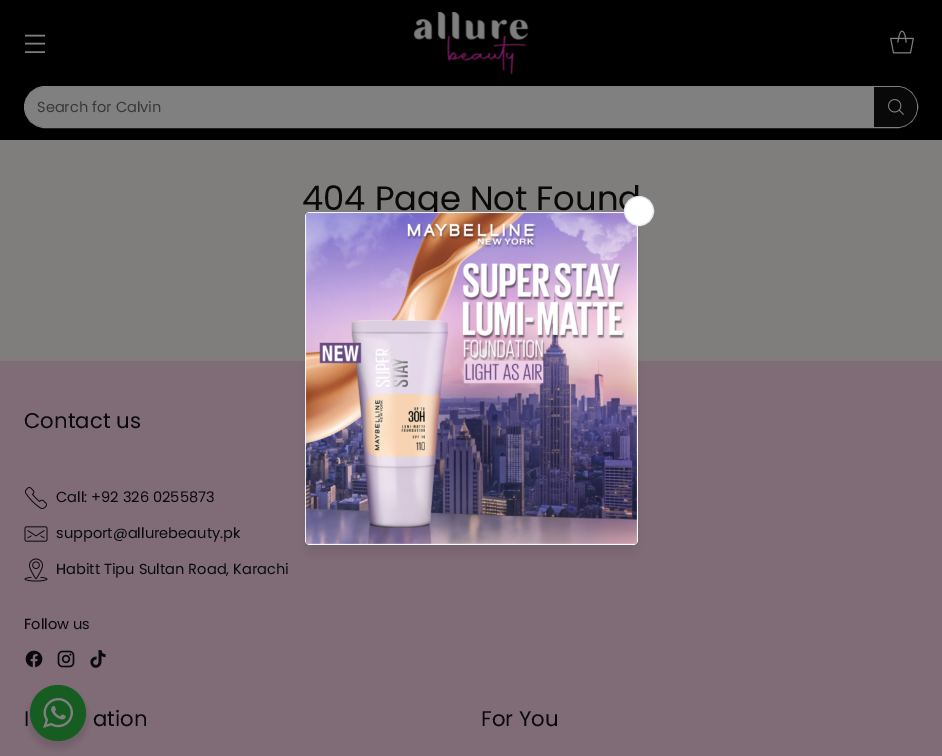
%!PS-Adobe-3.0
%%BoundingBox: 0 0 942 756
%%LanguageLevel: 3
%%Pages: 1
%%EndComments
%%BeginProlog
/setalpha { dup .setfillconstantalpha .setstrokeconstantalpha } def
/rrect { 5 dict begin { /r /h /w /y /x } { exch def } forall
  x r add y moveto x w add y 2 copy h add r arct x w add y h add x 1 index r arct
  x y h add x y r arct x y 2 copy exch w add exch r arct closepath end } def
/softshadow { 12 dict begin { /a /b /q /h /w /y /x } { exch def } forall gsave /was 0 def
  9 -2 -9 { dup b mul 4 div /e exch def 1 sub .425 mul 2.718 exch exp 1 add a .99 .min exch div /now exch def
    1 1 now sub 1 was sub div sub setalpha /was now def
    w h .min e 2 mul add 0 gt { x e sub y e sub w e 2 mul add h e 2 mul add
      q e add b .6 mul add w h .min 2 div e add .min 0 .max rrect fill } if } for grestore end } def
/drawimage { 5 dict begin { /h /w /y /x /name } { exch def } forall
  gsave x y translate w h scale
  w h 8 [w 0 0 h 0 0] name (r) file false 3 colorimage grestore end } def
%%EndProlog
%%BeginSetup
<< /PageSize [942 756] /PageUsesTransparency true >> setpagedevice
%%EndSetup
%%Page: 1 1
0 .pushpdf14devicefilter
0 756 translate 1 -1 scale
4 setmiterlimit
0.502 0.494 0.49 setrgbcolor
0 0 942 756 rectfill
0 setgray
0 0 942 140 rectfill
0.502 setgray
1.4 setlinewidth
newpath 25 43.5 moveto 45 43.5 lineto 25 35.5 moveto 45 35.5 lineto 25 52 moveto 45 52 lineto stroke
(images/1.raw) 413 12 116 63 drawimage
(images/2.raw) 890 30 24 24 drawimage
1 setlinewidth
24.5 86.5 893 41 20.5 rrect stroke
25 87 892 40 20 rrect fill
0.035 setgray
newpath 874 87 moveto 897 87 lineto 908 87 917 96 917 107 curveto 917 118 908 127 897 127 curveto 874 127 lineto closepath fill
(images/3.raw) 888 99 16 16 drawimage
0.502 0.424 0.467 setrgbcolor
0 361 942 395 rectfill
(images/4.raw) 25 487 22 22 drawimage
(images/5.raw) 24 526 24 16 drawimage
(images/6.raw) 24 558 24 24 drawimage
(images/7.raw) 25 650 18 18 drawimage
(images/8.raw) 57 650 18 18 drawimage
(images/9.raw) 90 650 16 18 drawimage
0 setgray
308 225 327 327 2 7.5 0.1 softshadow
gsave
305 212 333 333 rectclip
308 215 327 327 2 10 0.12 softshadow
grestore
28 689 60 60 30 4 0.14 softshadow
0.09 0.361 0.129 setrgbcolor
newpath 58 713 28 0 360 arc closepath fill
(images/11.raw) 43 698 30 30 drawimage
/Poppins-Regular [14.6 0 0 -14.6 0 0] selectfont
0.216 setgray
37 112 moveto (Search for Calvin) show
/Poppins-Regular [33.75 0 0 -33.75 0 0] selectfont
0.035 setgray
302 210 moveto (404 Page Not Found) show
/Poppins-Regular [21.25 0 0 -21.25 0 0] selectfont
24 428 moveto (Contact us) show
/Poppins-Regular [14.6 0 0 -14.6 0 0] selectfont
56 502 moveto (Call: +92 326 0255873) show
56 538 moveto (support@allurebeauty.pk) show
56 574 moveto (Habitt Tipu Sultan Road, Karachi) show
24 629 moveto (Follow us) show
/Poppins-Regular [21.25 0 0 -21.25 0 0] selectfont
24 726 moveto (I) show
93 726 moveto (ation) show
481 726 moveto (For You) show
1 setgray
305 212 333 333 5 rrect fill
(images/10.raw) 305 212 332 332 drawimage
newpath 639 211 14.5 0 360 arc closepath gsave fill grestore
0.886 0.91 0.941 setrgbcolor
stroke
.poppdf14devicefilter showpage
%%EOF
